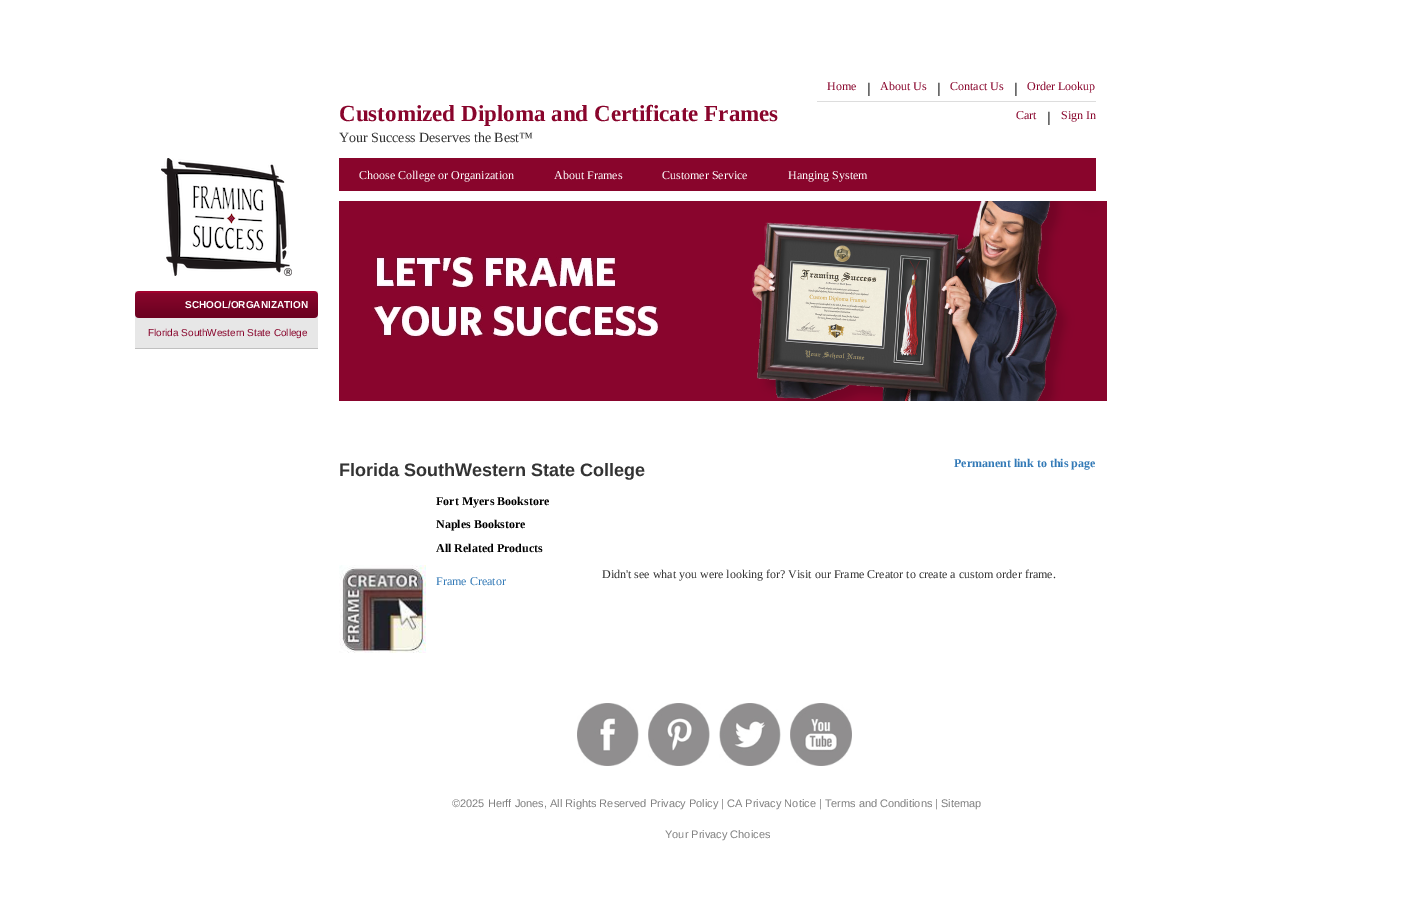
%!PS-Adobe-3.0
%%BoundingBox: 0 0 1423 913
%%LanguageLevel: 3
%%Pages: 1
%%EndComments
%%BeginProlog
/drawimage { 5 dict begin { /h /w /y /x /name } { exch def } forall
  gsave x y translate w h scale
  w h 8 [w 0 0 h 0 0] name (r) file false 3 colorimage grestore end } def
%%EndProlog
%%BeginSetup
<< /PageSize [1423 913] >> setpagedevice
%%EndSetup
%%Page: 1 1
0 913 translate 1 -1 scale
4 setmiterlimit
1 setgray
0 0 1423 913 rectfill
0.867 setgray
817 101 279 1 rectfill
(images/1.raw) 161 158 131 118 drawimage
0.906 setgray
135 291 183 57 rectfill
(images/2.raw) 135 291 183 27 drawimage
0.753 setgray
135 348 183 1 rectfill
0.537 0.02 0.173 setrgbcolor
339 158 757 33 rectfill
(images/3.raw) 339 201 768 200 drawimage
(images/4.raw) 339 565 87 88 drawimage
(images/5.raw) 577 703 62 63 drawimage
(images/6.raw) 648 703 62 63 drawimage
(images/7.raw) 719 703 62 63 drawimage
(images/8.raw) 790 703 62 63 drawimage
/LiberationSerif-Bold [23 0 0 -23 0 0] selectfont
339 121 moveto (Customized Diploma and Certificate Frames) show
/LiberationSerif-Regular [12 0 0 -12 0 0] selectfont
827 90 moveto (Home) show
/LiberationSans-Regular [14 0 0 -14 0 0] selectfont
0.2 setgray
867 93 moveto (|) show
/LiberationSerif-Regular [12 0 0 -12 0 0] selectfont
0.537 0.02 0.173 setrgbcolor
880 90 moveto (About Us) show
/LiberationSans-Regular [14 0 0 -14 0 0] selectfont
0.2 setgray
937 93 moveto (|) show
/LiberationSerif-Regular [12 0 0 -12 0 0] selectfont
0.537 0.02 0.173 setrgbcolor
950 90 moveto (Contact Us) show
/LiberationSans-Regular [14 0 0 -14 0 0] selectfont
0.2 setgray
1014 93 moveto (|) show
/LiberationSerif-Regular [12 0 0 -12 0 0] selectfont
0.537 0.02 0.173 setrgbcolor
1027 90 moveto (Order Lookup) show
1016 119 moveto (Cart) show
/LiberationSans-Regular [14 0 0 -14 0 0] selectfont
0.2 setgray
1047 122 moveto (|) show
/LiberationSerif-Regular [12 0 0 -12 0 0] selectfont
0.537 0.02 0.173 setrgbcolor
1061 119 moveto (Sign In) show
/LiberationSerif-Regular [14 0 0 -14 0 0] selectfont
0.2 setgray
339 142 moveto (Your Success Deserves the Best™) show
/LiberationSans-Bold [10 0 0 -10 0 0] selectfont
1 setgray
185 308 moveto (SCHOOL/ORGANIZATION) show
/LiberationSans-Regular [10 0 0 -10 0 0] selectfont
0.537 0.02 0.173 setrgbcolor
148 336 moveto (Florida SouthWestern State College) show
/LiberationSerif-Regular [12 0 0 -12 0 0] selectfont
1 setgray
359 179 moveto (Choose College or Organization) show
554 179 moveto (About Frames) show
662 179 moveto (Customer Service) show
788 179 moveto (Hanging System) show
/LiberationSans-Bold [18 0 0 -18 0 0] selectfont
0.2 setgray
339 476 moveto (Florida SouthWestern State College) show
/LiberationSerif-Bold [12 0 0 -12 0 0] selectfont
0.2 0.478 0.718 setrgbcolor
954 467 moveto (Permanent link to this page) show
0 setgray
436 505 moveto (Fort Myers Bookstore) show
436 528 moveto (Naples Bookstore) show
436 552 moveto (All Related Products) show
/LiberationSerif-Regular [12 0 0 -12 0 0] selectfont
0.2 0.478 0.718 setrgbcolor
436 585 moveto (Frame Creator) show
0.2 setgray
602 578 moveto (Didn't see what you were looking for? Visit our Frame Creator to create a custom order frame.) show
/LiberationSans-Regular [11 0 0 -11 0 0] selectfont
0.502 setgray
452 807 moveto (©2025 Herff Jones, All Rights Reserved Privacy Policy | CA Privacy Notice | Terms and Conditions | Sitemap) show
665 838 moveto (Your Privacy Choices) show
showpage
%%EOF
